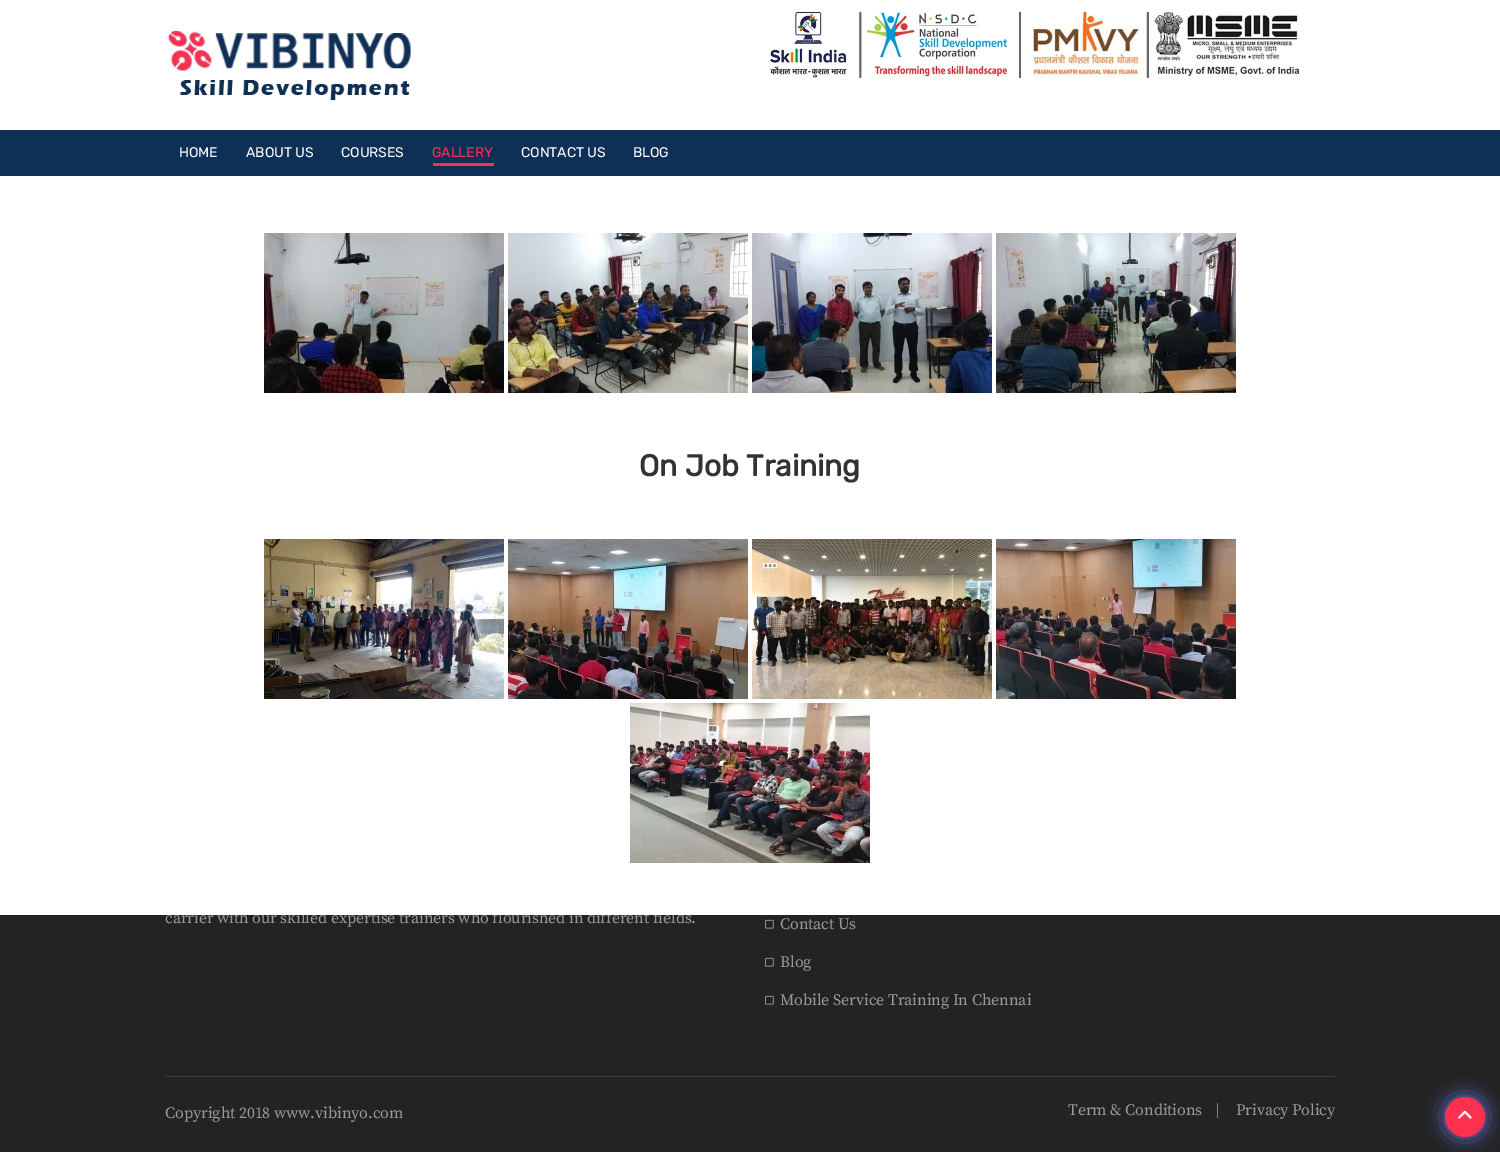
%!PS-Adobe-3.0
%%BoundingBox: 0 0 1500 1152
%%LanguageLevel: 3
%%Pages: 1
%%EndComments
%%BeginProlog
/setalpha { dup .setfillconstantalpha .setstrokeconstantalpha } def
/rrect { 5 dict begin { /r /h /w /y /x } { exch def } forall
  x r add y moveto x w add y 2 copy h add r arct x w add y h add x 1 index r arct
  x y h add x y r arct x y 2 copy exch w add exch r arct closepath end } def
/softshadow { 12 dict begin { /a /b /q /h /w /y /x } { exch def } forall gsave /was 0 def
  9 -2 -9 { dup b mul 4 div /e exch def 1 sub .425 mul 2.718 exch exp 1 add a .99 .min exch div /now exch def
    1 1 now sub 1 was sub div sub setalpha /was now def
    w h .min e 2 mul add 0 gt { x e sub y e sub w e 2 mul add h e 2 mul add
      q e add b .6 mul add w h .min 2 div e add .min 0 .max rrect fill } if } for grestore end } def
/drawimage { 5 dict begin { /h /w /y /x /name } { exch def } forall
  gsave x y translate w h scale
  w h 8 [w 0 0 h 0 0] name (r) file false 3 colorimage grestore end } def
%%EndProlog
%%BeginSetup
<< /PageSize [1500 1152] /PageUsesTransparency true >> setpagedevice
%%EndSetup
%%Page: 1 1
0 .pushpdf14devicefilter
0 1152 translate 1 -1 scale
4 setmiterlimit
0.137 setgray
0 0 1500 1152 rectfill
1 setgray
0 0 1500 130 rectfill
(images/1.raw) 168 30 243 70 drawimage
(images/2.raw) 768 9 532 69 drawimage
0.055 0.184 0.337 setrgbcolor
0 130 1500 46 rectfill
0.996 0.188 0.31 setrgbcolor
433 163 61 3 rectfill
(images/12.raw) 765 919 9 10 drawimage
(images/12.raw) 765 957 9 10 drawimage
(images/12.raw) 765 995 9 10 drawimage
0.251 setgray
165 1076 1170 1 rectfill
0.502 setgray
1217 1103 1 15 rectfill
0.42 0.455 0.902 setrgbcolor
1445 1097 40 40 20 10 0.9 softshadow
0.996 0.188 0.31 setrgbcolor
newpath 1465 1117 20 0 360 arc closepath fill
(images/13.raw) 1458 1110 14 9 drawimage
/Rubik-Light [14 0 0 -14 0 0] selectfont
1 setgray
179 157 moveto -0.1 0 (HOME) ashow
246 157 moveto -0.1 0 (ABOUT US) ashow
341 157 moveto -0.1 0 (COURSES) ashow
0.996 0.188 0.31 setrgbcolor
432 157 moveto -0.1 0 (GALLERY) ashow
1 setgray
521 157 moveto -0.1 0 (CONTACT US) ashow
633 157 moveto -0.1 0 (BLOG) ashow
/SourceSerifPro-Regular [16 0 0 -16 0 0] selectfont
0.6 setgray
165 923 moveto -0.1 0 (carrier with our skilled expertise trainers who flourished in different fields.) ashow
1 setgray
0 176 1500 739 rectfill
(images/11.raw) 630 703 240 160 drawimage
(images/10.raw) 996 539 240 160 drawimage
(images/9.raw) 752 539 240 160 drawimage
(images/8.raw) 508 539 240 160 drawimage
(images/7.raw) 264 539 240 160 drawimage
(images/6.raw) 996 233 240 160 drawimage
(images/5.raw) 752 233 240 160 drawimage
(images/4.raw) 508 233 240 160 drawimage
(images/3.raw) 264 233 240 160 drawimage
/Rubik-Bold [30 0 0 -30 0 0] selectfont
0.2 setgray
639 476 moveto (On Job Training) show
/SourceSerifPro-Regular [16 0 0 -16 0 0] selectfont
0.6 setgray
780 929 moveto -0.1 0 (Contact Us) ashow
780 967 moveto -0.1 0 (Blog) ashow
780 1005 moveto -0.1 0 (Mobile Service Training In Chennai) ashow
165 1118 moveto -0.1 0 (Copyright 2018 www.vibinyo.com) ashow
1068 1115 moveto -0.1 0 (Term & Conditions) ashow
1236 1115 moveto -0.1 0 (Privacy Policy) ashow
.poppdf14devicefilter showpage
%%EOF
